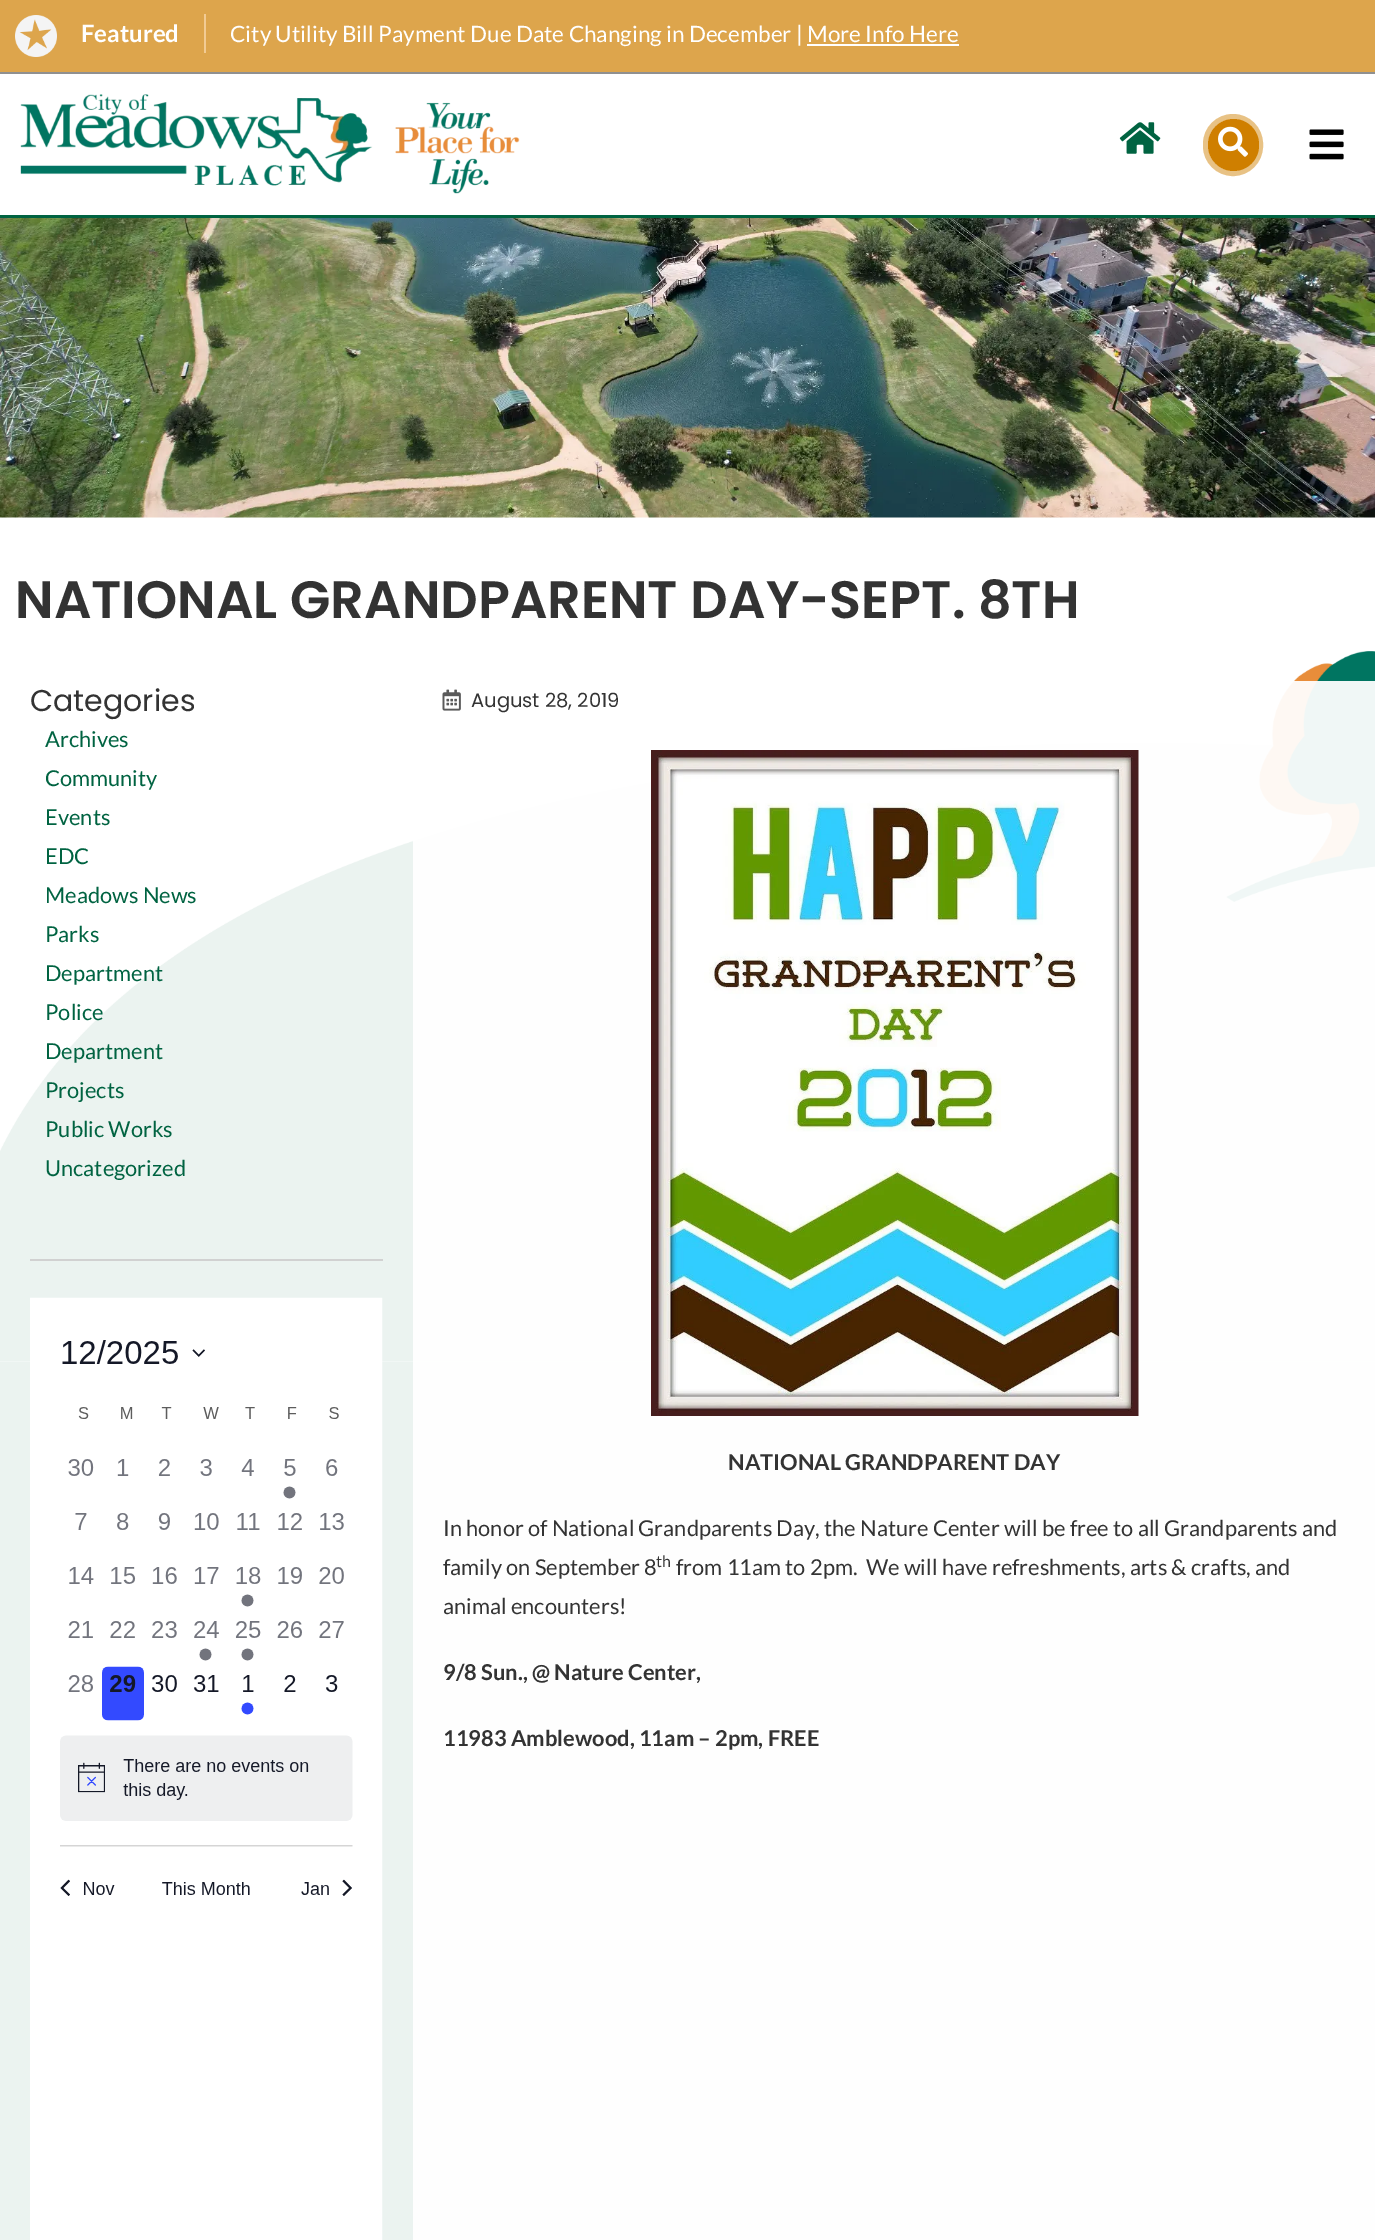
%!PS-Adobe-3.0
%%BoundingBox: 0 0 1375 2240
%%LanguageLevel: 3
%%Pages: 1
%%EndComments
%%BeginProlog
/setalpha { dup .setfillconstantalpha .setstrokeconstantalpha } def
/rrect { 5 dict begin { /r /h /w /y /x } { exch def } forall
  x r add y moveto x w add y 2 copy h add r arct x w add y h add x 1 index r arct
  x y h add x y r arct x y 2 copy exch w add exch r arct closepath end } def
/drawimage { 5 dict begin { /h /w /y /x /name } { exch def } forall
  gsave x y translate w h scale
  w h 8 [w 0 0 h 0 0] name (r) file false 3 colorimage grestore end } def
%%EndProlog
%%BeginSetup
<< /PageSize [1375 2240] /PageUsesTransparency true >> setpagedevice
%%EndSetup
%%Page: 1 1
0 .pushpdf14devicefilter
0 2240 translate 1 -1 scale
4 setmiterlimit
1 setgray
0 0 1375 2240 rectfill
0.867 0.647 0.298 setrgbcolor
0 0 1375 72 rectfill
0.565 setgray
0 72 1375 2 rectfill
(images/1.raw) 15 15 42 42 drawimage
0.949 0.796 0.576 setrgbcolor
204 14 2 39 rectfill
1 setgray
807 44 152 2 rectfill
0 0.388 0.255 setrgbcolor
0 215 1375 3 rectfill
(images/2.raw) 20 94 500 100 drawimage
(images/3.raw) 1119 122 42 32 drawimage
0.91 0.761 0.522 setrgbcolor
5 setlinewidth
1205.5 116.5 55 57 27.5 rrect stroke
0.812 0.498 0 setrgbcolor
1208 119 51 52 25.5 rrect fill
(images/4.raw) 1218 126 30 31 drawimage
(images/5.raw) 1309 129 35 31 drawimage
(images/6.raw) 0 218 1375 300 drawimage
0.922 0.953 0.941 setrgbcolor
0 1362 1375 878 rectfill
(images/7.raw) 0 651 1375 711 drawimage
0.82 setgray
30 1259 353 2 rectfill
(images/8.raw) 30 1297 353 943 drawimage
0.94 setalpha
1 setgray
413 681 962 1559 rectfill
1 setalpha
(images/9.raw) 442 689 19 22 drawimage
(images/10.raw) 651 750 488 666 drawimage
/Lato-Bold [24 0 0 -24 0 0] selectfont
81 42 moveto (Featured) show
/Lato-Regular [22.5 0 0 -22.5 0 0] selectfont
230 42 moveto (City Utility Bill Payment Due Date Changing in December | More Info Here) show
/Poppins-SemiBold [52.5 0 0 -52.5 0 0] selectfont
0.2 setgray
15 618 moveto (NATIONAL GRANDPARENT DAY-SEPT. 8TH) show
/Poppins-Regular [30 0 0 -30 0 0] selectfont
30 711 moveto (Categories) show
/Lato-Regular [21.9 0 0 -21.9 0 0] selectfont
0 0.388 0.255 setrgbcolor
45 747 moveto (Archives) show
45 786 moveto (Community) show
45 825 moveto (Events) show
45 864 moveto (EDC) show
45 903 moveto (Meadows News) show
45 942 moveto (Parks) show
45 981 moveto (Department) show
45 1020 moveto (Police) show
45 1059 moveto (Department) show
45 1098 moveto (Projects) show
45 1137 moveto (Public Works) show
45 1176 moveto (Uncategorized) show
/Poppins-Regular [19.5 0 0 -19.5 0 0] selectfont
0.2 setgray
471 707 moveto (August 28, 2019) show
/Lato-Bold [21.9 0 0 -21.9 0 0] selectfont
728 1470 moveto (NATIONAL GRANDPARENT DAY) show
/Lato-Regular [21.9 0 0 -21.9 0 0] selectfont
443 1536 moveto (In honor of National Grandparents Day, the Nature Center will be free to all Grandparents and) show
443 1575 moveto (family on September 8) show
/Lato-Regular [16 0 0 -16 0 0] selectfont
656 1567 moveto (th) show
/Lato-Regular [21.9 0 0 -21.9 0 0] selectfont
676 1575 moveto (from 11am to 2pm.  We will have refreshments, arts & crafts, and) show
443 1614 moveto (animal encounters!) show
/Lato-Bold [21.9 0 0 -21.9 0 0] selectfont
443 1680 moveto (9/8 Sun., @ Nature Center,) show
443 1746 moveto (11983 Amblewood, 11am – 2pm, FREE) show
.poppdf14devicefilter showpage
%%EOF
